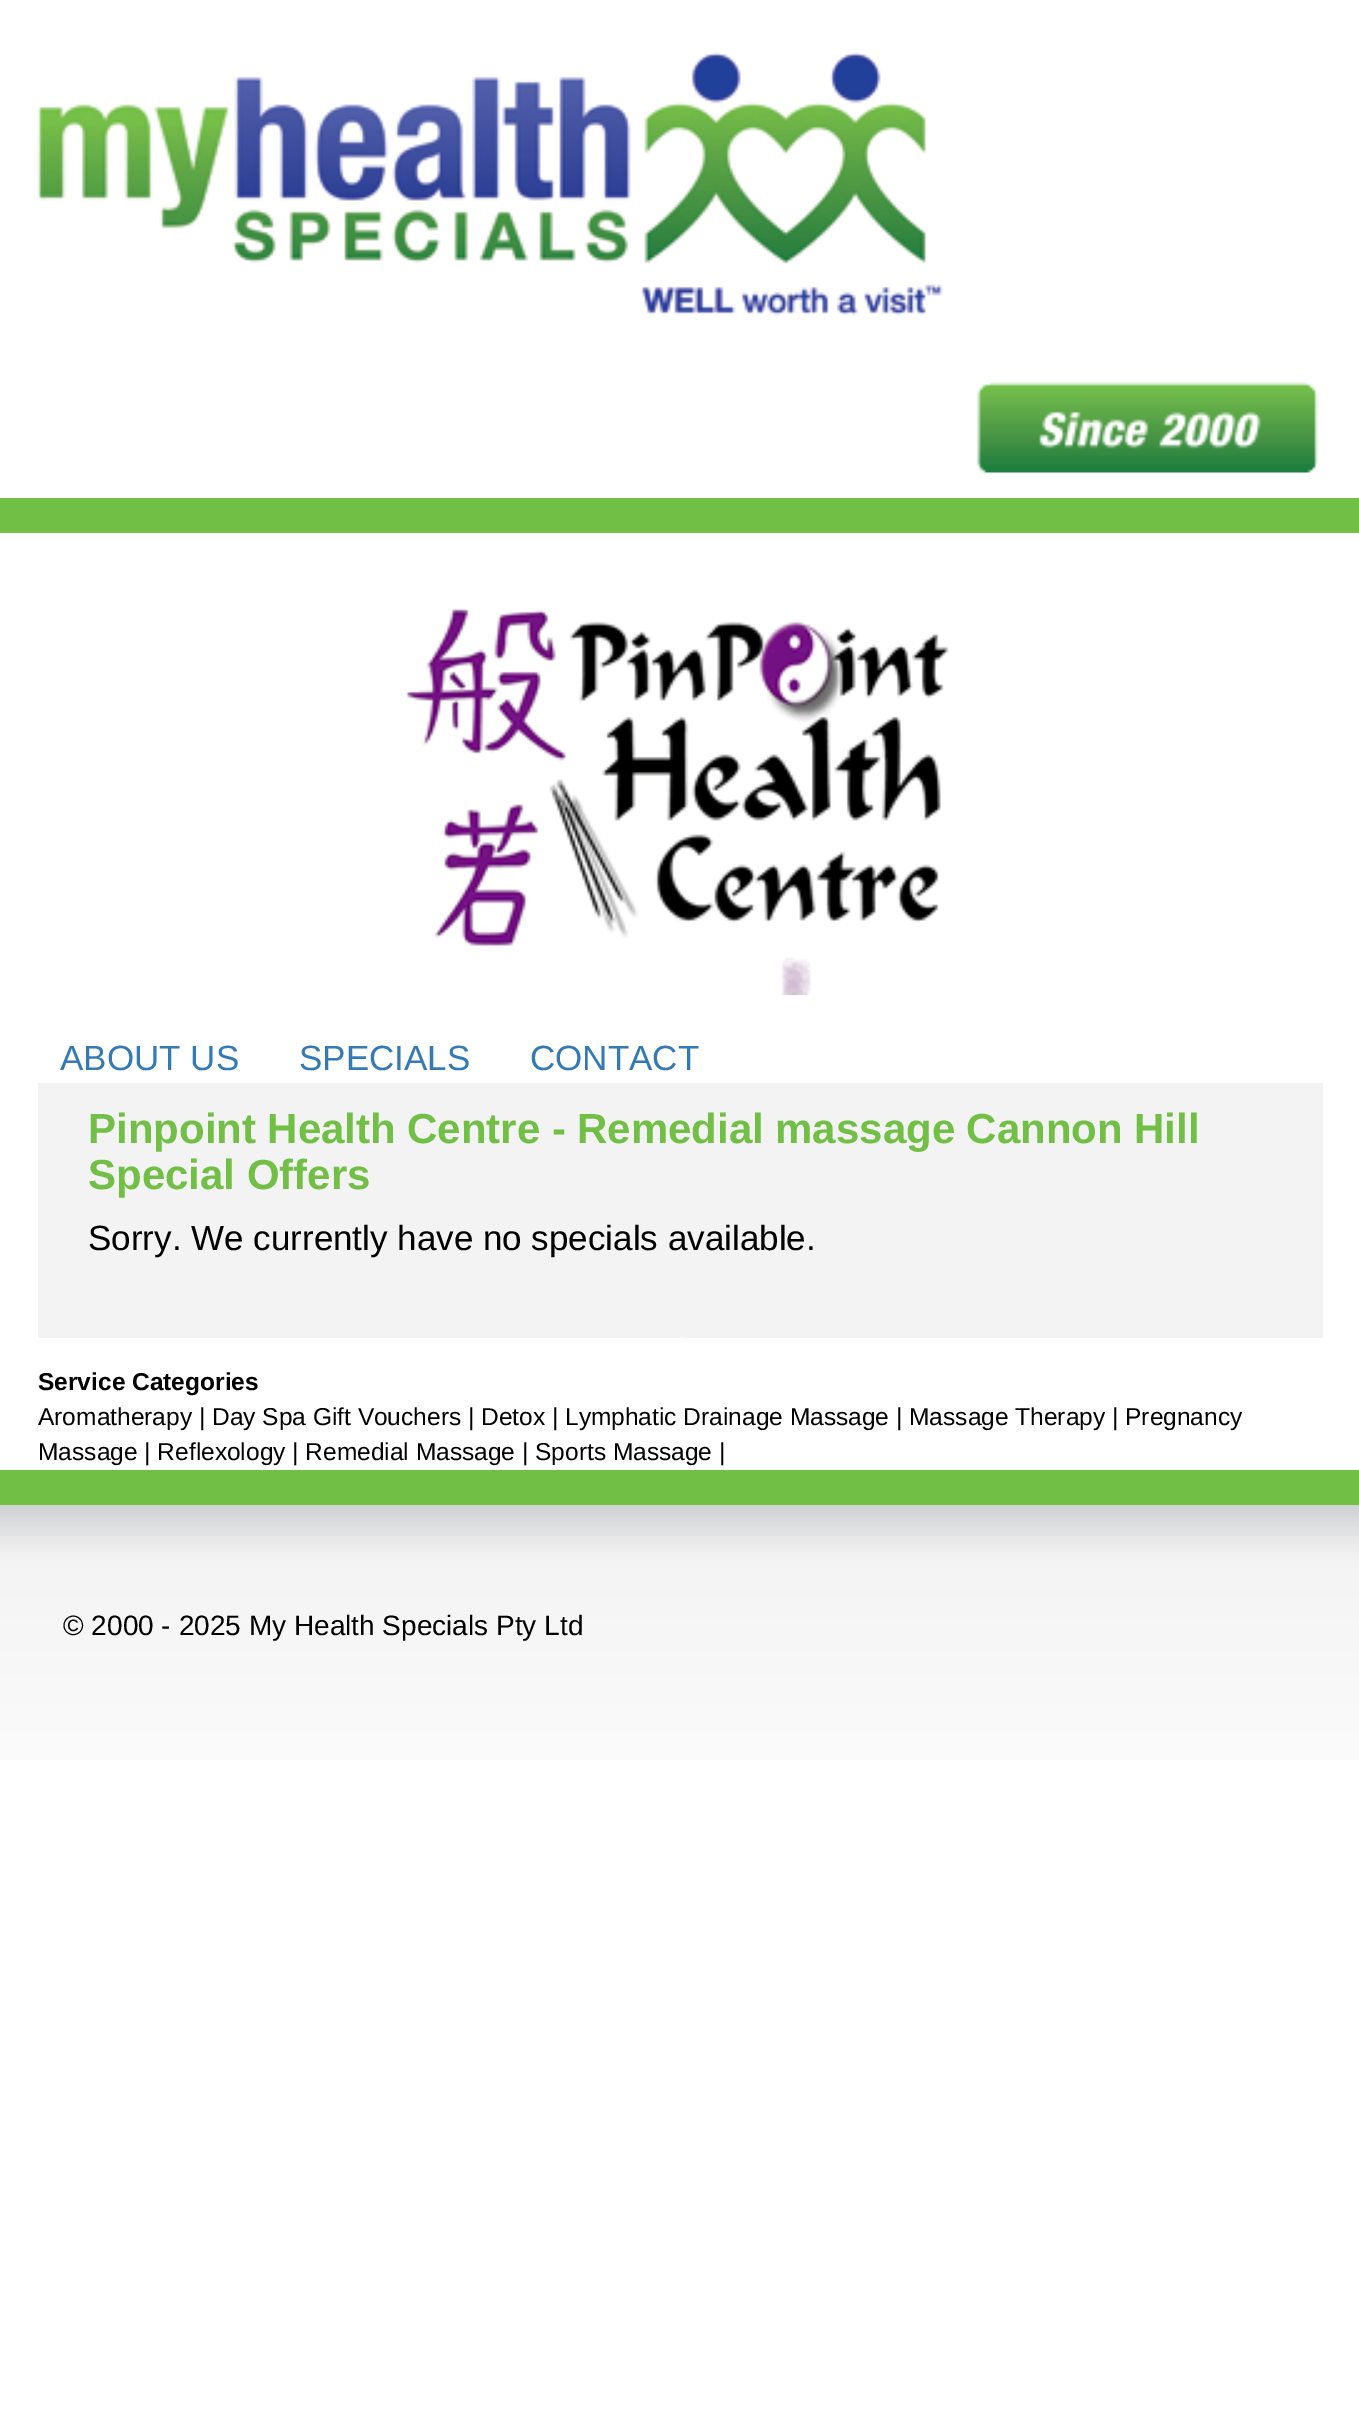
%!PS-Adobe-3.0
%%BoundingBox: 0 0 1359 2424
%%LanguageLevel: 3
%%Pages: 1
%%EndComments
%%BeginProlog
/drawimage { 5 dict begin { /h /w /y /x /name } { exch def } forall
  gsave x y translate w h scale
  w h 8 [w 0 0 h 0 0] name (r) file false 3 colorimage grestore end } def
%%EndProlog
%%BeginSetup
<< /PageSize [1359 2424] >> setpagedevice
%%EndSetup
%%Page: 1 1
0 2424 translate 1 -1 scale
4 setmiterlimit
1 setgray
0 0 1359 2424 rectfill
(images/1.raw) 37 52 906 264 drawimage
(images/2.raw) 976 382 343 91 drawimage
0.443 0.749 0.267 setrgbcolor
0 498 1359 35 rectfill
(images/3.raw) 406 609 543 386 drawimage
0.953 0.953 0.957 setrgbcolor
38 1083 1285 255 rectfill
0.976 0.976 0.98 setrgbcolor
680 1337 2 1 rectfill
0.443 0.749 0.267 setrgbcolor
0 1470 1359 35 rectfill
(images/4.raw) 0 1505 1359 255 drawimage
/LiberationSans-Regular [35 0 0 -35 0 0] selectfont
0.2 0.478 0.718 setrgbcolor
60 1070 moveto (ABOUT US) show
299 1070 moveto (SPECIALS) show
530 1070 moveto (CONTACT) show
/LiberationSans-Bold [42 0 0 -42 0 0] selectfont
0.443 0.749 0.267 setrgbcolor
88 1143 moveto -0.25 0 32 (Pinpoint Health Centre - Remedial massage Cannon Hill) widthshow
88 1189 moveto (Special Offers) show
/LiberationSans-Regular [35 0 0 -35 0 0] selectfont
0 setgray
88 1250 moveto (Sorry. We currently have no specials available.) show
/LiberationSans-Bold [24.5 0 0 -24.5 0 0] selectfont
38 1390 moveto (Service Categories) show
/LiberationSans-Regular [24.5 0 0 -24.5 0 0] selectfont
38 1425 moveto (Aromatherapy | Day Spa Gift Vouchers | Detox | Lymphatic Drainage Massage | Massage Therapy | Pregnancy) show
38 1460 moveto (Massage | Reflexology | Remedial Massage | Sports Massage |) show
/LiberationSans-Regular [28 0 0 -28 0 0] selectfont
63 1635 moveto (© 2000 - 2025 My Health Specials Pty Ltd) show
showpage
%%EOF
